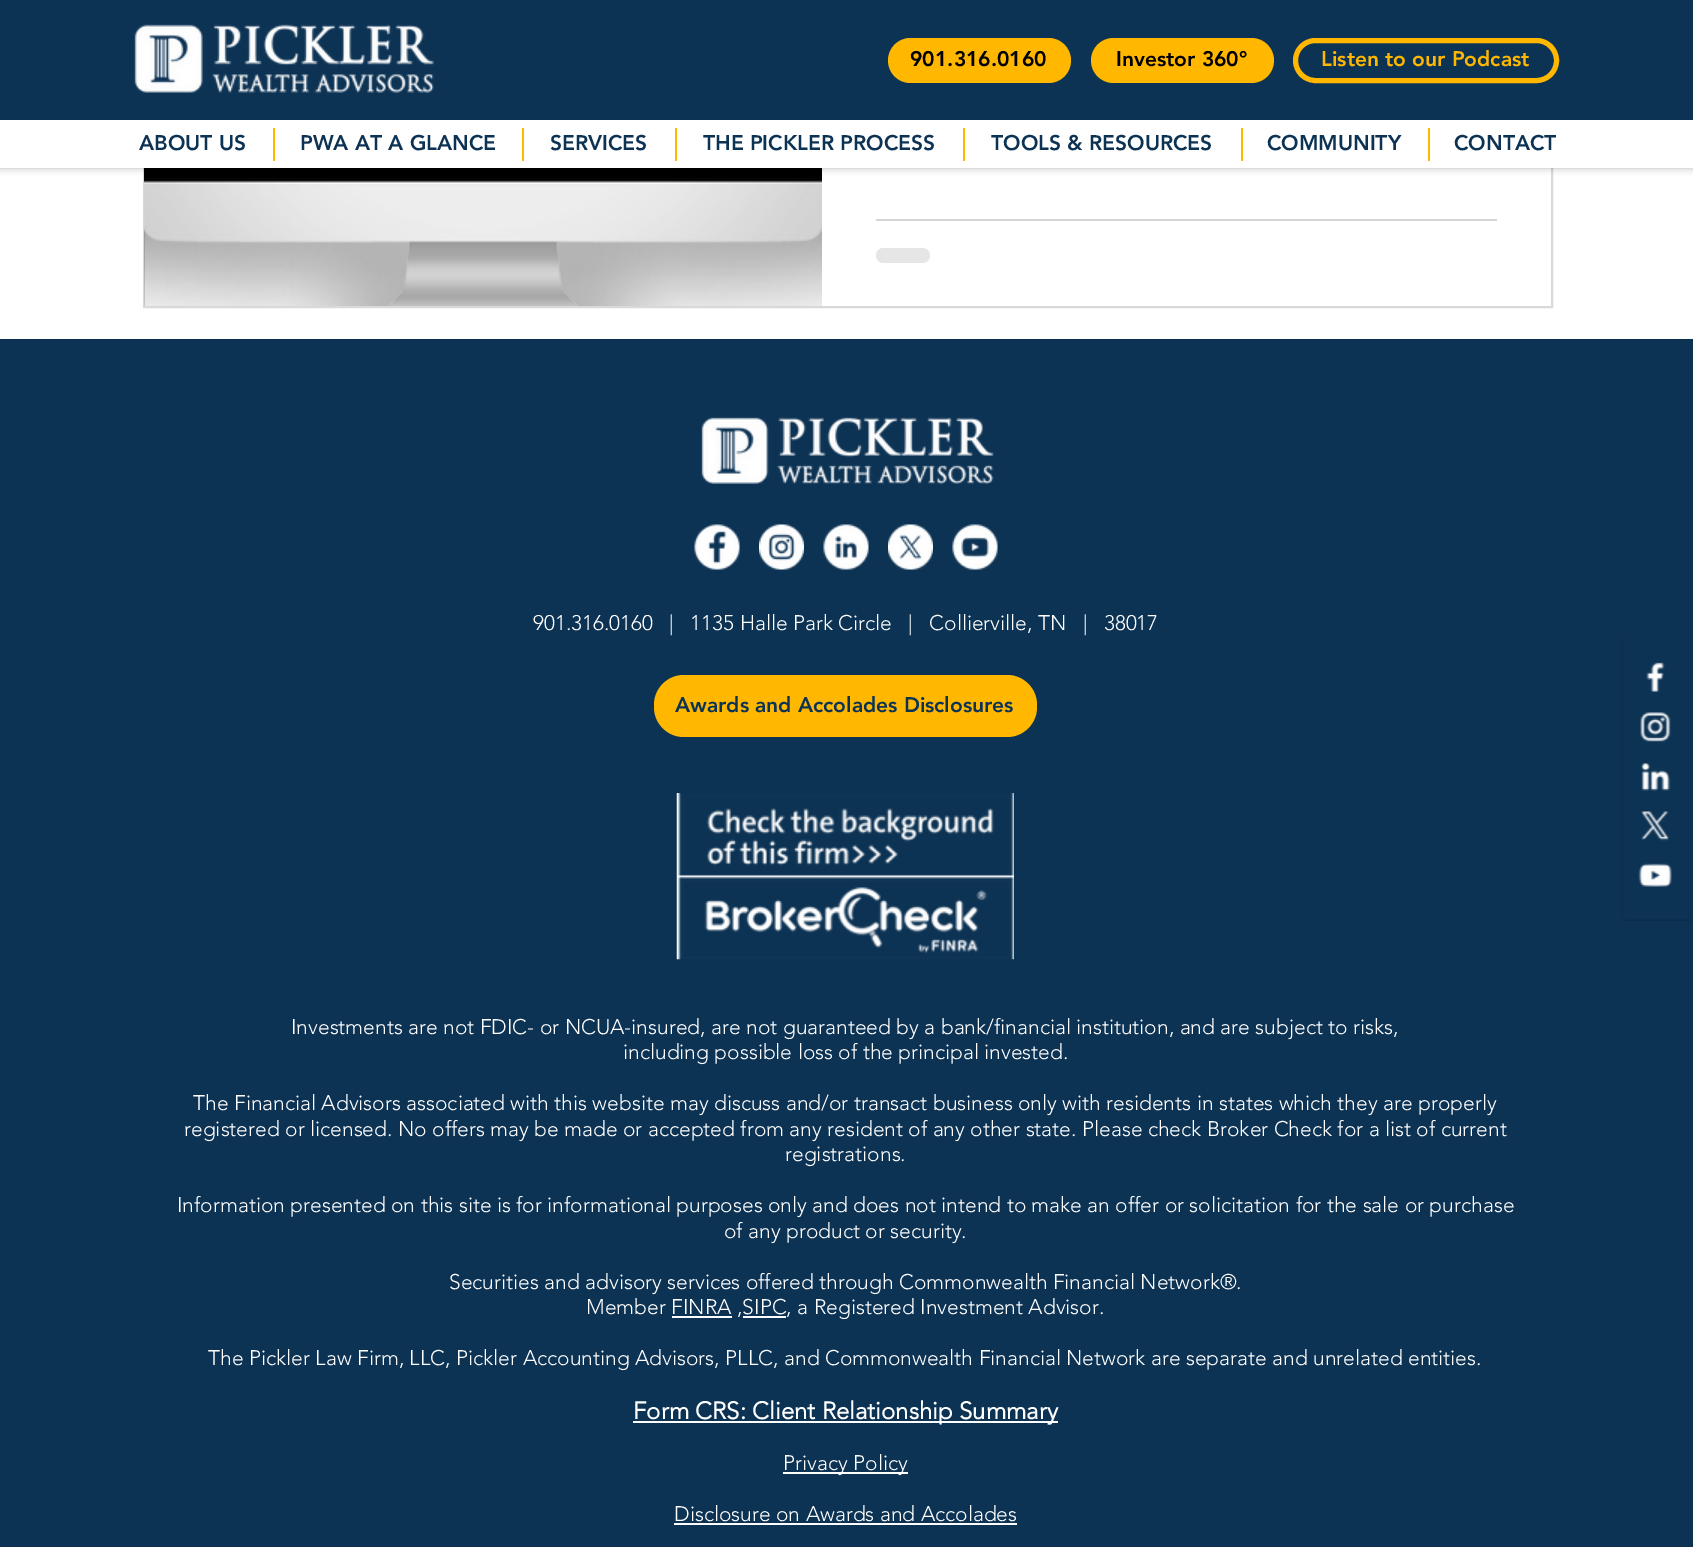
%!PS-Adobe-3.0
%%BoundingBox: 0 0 1693 1547
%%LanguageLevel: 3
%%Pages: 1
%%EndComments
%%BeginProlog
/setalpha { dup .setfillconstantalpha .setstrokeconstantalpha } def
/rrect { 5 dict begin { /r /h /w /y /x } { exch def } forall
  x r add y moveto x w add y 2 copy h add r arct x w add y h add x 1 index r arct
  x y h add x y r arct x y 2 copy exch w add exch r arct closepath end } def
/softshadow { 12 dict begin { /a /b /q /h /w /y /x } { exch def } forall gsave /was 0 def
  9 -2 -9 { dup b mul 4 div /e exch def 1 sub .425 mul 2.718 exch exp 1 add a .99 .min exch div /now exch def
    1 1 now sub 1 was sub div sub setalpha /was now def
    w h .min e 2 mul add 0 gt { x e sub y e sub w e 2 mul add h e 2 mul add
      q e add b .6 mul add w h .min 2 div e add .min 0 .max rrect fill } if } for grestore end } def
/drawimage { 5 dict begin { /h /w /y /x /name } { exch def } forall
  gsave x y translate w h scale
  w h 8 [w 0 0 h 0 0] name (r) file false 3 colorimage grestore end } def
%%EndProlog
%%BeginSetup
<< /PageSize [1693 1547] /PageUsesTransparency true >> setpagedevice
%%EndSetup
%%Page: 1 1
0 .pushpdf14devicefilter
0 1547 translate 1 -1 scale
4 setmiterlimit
1 setgray
0 0 1693 1547 rectfill
0.851 setgray
2 setlinewidth
144 -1 1408 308 rectstroke
(images/2.raw) 144 224 678 82 drawimage
(images/1.raw) 144 168 678 138 drawimage
0.835 setgray
876 219 621 2 rectfill
0.902 setgray
876 248 54 15 7.5 rrect fill
0 setgray
0 0 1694 168 0 4 0.27 softshadow
0.051 0.2 0.329 setrgbcolor
0 0 1693 120 rectfill
(images/3.raw) 134 24 300 69 drawimage
1 0.718 0 setrgbcolor
888 38 183 45 22.5 rrect fill
1091 38 183 45 22.5 rrect fill
5 setlinewidth
1295.5 40.5 261 40 20 rrect stroke
1 setgray
0 120 1693 48 rectfill
1 0.718 0 setrgbcolor
273 128 2 33 rectfill
522 128 2 33 rectfill
675 128 2 33 rectfill
963 128 2 33 rectfill
1241 128 2 33 rectfill
1428 128 2 33 rectfill
0.051 0.2 0.329 setrgbcolor
0 339 1693 1208 rectfill
(images/4.raw) 701 417 293 67 drawimage
(images/5.raw) 694 524 46 46 drawimage
(images/6.raw) 759 524 45 46 drawimage
(images/7.raw) 823 524 46 46 drawimage
(images/8.raw) 888 524 45 46 drawimage
(images/9.raw) 952 524 46 46 drawimage
1 0.718 0 setrgbcolor
654 675 383 62 30 rrect fill
(images/10.raw) 676 793 338 167 drawimage
1 setgray
672 1316 60 2 rectfill
743 1316 43 2 rectfill
633 1421 425 2 rectfill
783 1472 125 2 rectfill
674 1523 343 2 rectfill
(images/11.raw) 1622 635 71 286 drawimage
(images/12.raw) 1646 662 19 30 drawimage
(images/13.raw) 1640 712 31 30 drawimage
(images/14.raw) 1641 763 30 28 drawimage
(images/15.raw) 1641 811 28 30 drawimage
(images/16.raw) 1638 863 34 24 drawimage
/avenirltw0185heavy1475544-Black [21 0 0 -21 0 0] selectfont
0 setgray
910 66 moveto (901.316.0160) show
1116 66 moveto (Investor 360°) show
1 0.718 0 setrgbcolor
1321 66 moveto (Listen to our Podcast) show
0.051 0.2 0.329 setrgbcolor
139 150 moveto (ABOUT US) show
300 150 moveto (PWA AT A GLANCE) show
550 150 moveto (SERVICES) show
703 150 moveto (THE PICKLER PROCESS) show
991 150 moveto (TOOLS & RESOURCES) show
1267 150 moveto (COMMUNITY) show
1454 150 moveto (CONTACT) show
/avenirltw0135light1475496-Light [21 0 0 -21 0 0] selectfont
1 setgray
533 630 moveto (901.316.0160   |   1135 Halle Park Circle   |   Collierville, TN   |   38017) show
/avenirltw0185heavy1475544-Black [21 0 0 -21 0 0] selectfont
0.051 0.2 0.329 setrgbcolor
675 712 moveto (Awards and Accolades Disclosures) show
/avenirltw0135light1475496-Light [21 0 0 -21 0 0] selectfont
1 setgray
291 1034 moveto (Investments are not FDIC- or NCUA-insured, are not guaranteed by a bank/financial institution, and are subject to risks,) show
623 1059 moveto (including possible loss of the principal invested.) show
193 1110 moveto (The Financial Advisors associated with this website may discuss and/or transact business only with residents in states which they are properly) show
184 1136 moveto (registered or licensed. No offers may be made or accepted from any resident of any other state. Please check Broker Check for a list of current) show
785 1161 moveto (registrations.) show
177 1212 moveto (Information presented on this site is for informational purposes only and does not intend to make an offer or solicitation for the sale or purchase) show
724 1238 moveto (of any product or security.) show
449 1289 moveto (Securities and advisory services offered through Commonwealth Financial Network®.) show
586 1314 moveto (Member FINRA ,SIPC, a Registered Investment Advisor.) show
208 1365 moveto (The Pickler Law Firm, LLC, Pickler Accounting Advisors, PLLC, and Commonwealth Financial Network are separate and unrelated entities.) show
/avenirltw0135light1475496-Bold [24 0 0 -24 0 0] selectfont
633 1419 moveto (Form CRS: Client Relationship Summary) show
/avenirltw0135light1475496-Light [21 0 0 -21 0 0] selectfont
783 1470 moveto (Privacy Policy) show
674 1521 moveto (Disclosure on Awards and Accolades) show
.poppdf14devicefilter showpage
%%EOF
